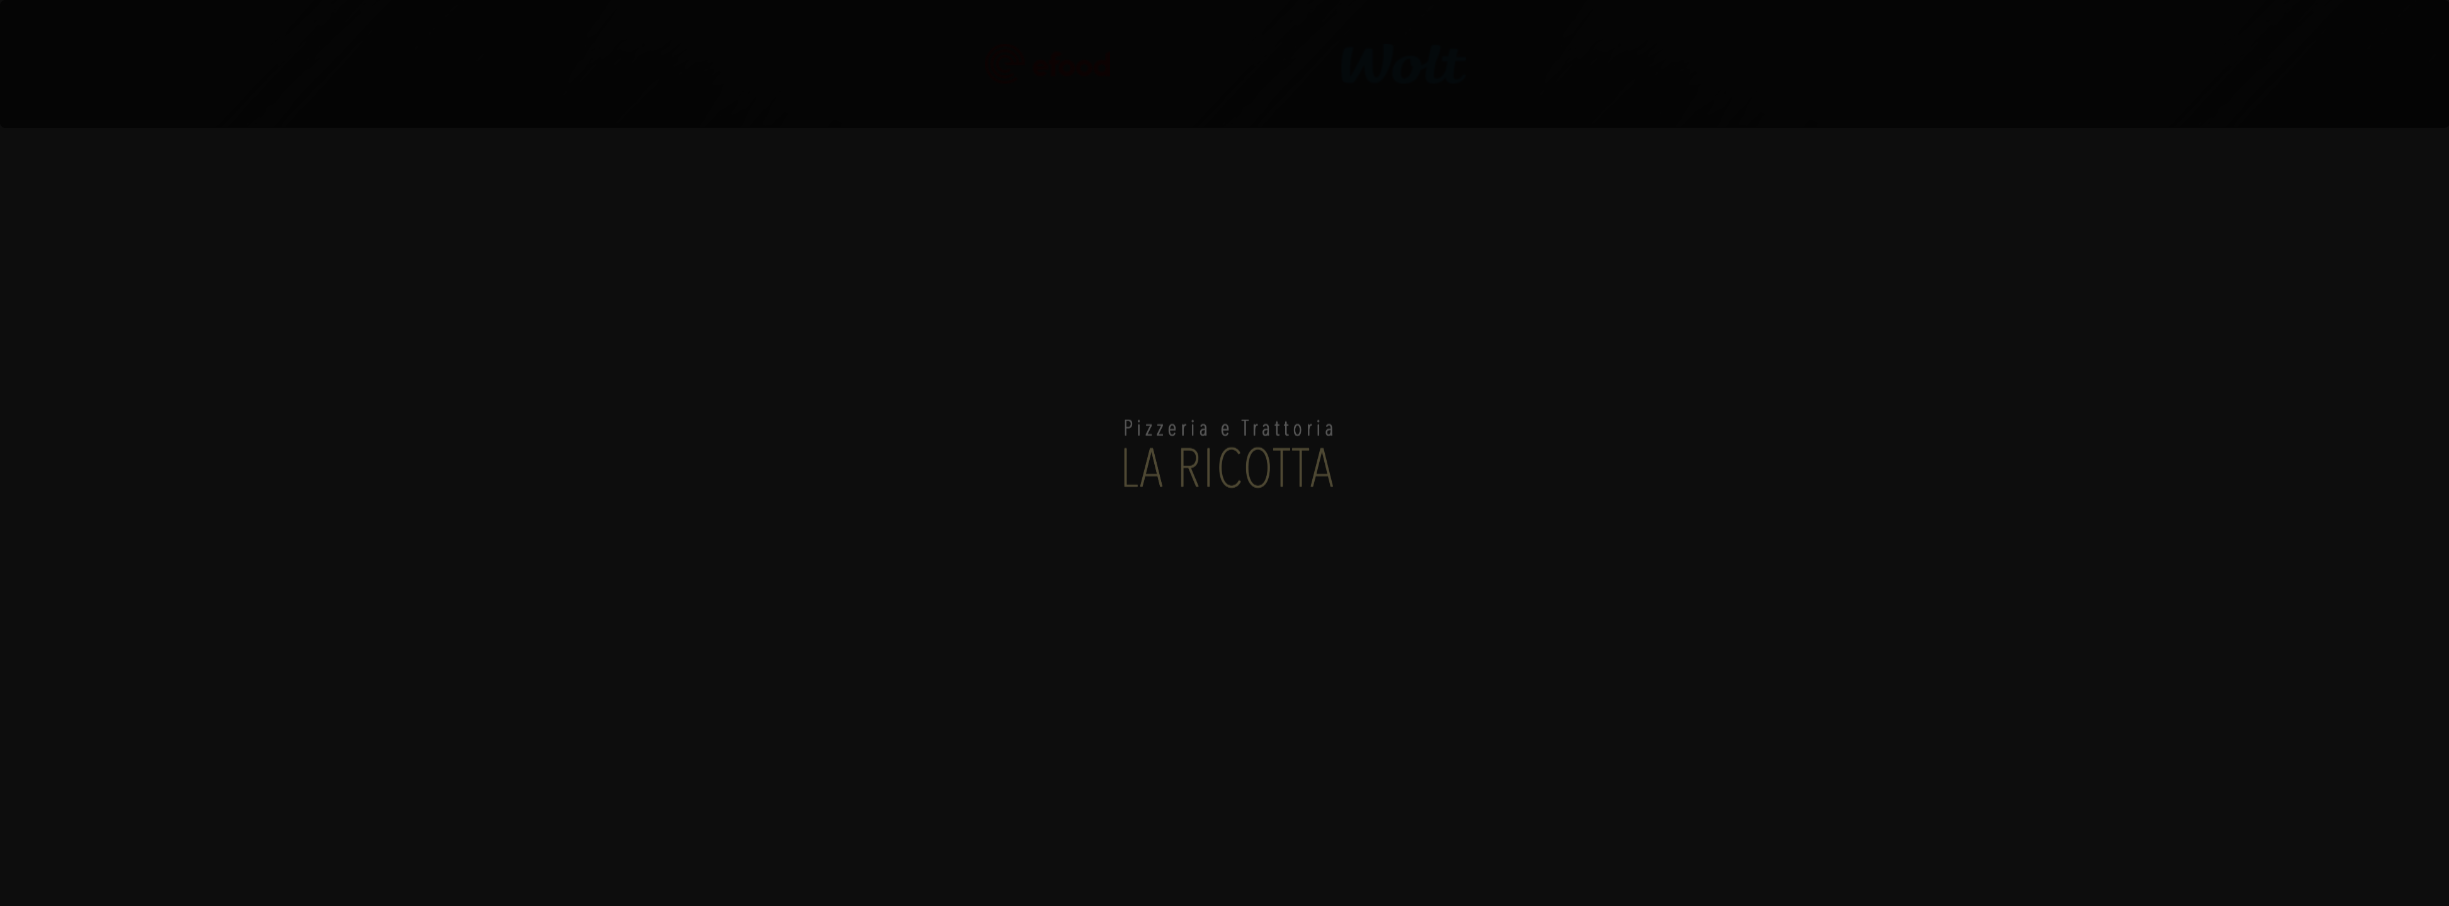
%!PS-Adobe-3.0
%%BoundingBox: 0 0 2449 906
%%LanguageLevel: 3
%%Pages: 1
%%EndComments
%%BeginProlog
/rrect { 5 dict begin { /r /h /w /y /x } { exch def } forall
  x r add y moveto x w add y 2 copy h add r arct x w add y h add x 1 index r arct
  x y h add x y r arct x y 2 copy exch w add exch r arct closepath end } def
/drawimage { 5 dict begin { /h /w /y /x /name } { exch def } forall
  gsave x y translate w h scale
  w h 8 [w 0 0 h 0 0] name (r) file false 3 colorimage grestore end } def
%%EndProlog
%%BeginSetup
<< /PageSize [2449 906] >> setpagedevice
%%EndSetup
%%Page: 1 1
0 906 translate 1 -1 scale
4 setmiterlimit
0.051 setgray
0 0 2449 906 rectfill
0.02 setgray
0 0 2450 128 6 rrect fill
(images/1.raw) 215 0 2234 128 drawimage
(images/2.raw) 985 43 125 41 drawimage
(images/3.raw) 1341 43 126 41 drawimage
(images/4.raw) 1124 419 209 70 drawimage
showpage
%%EOF
